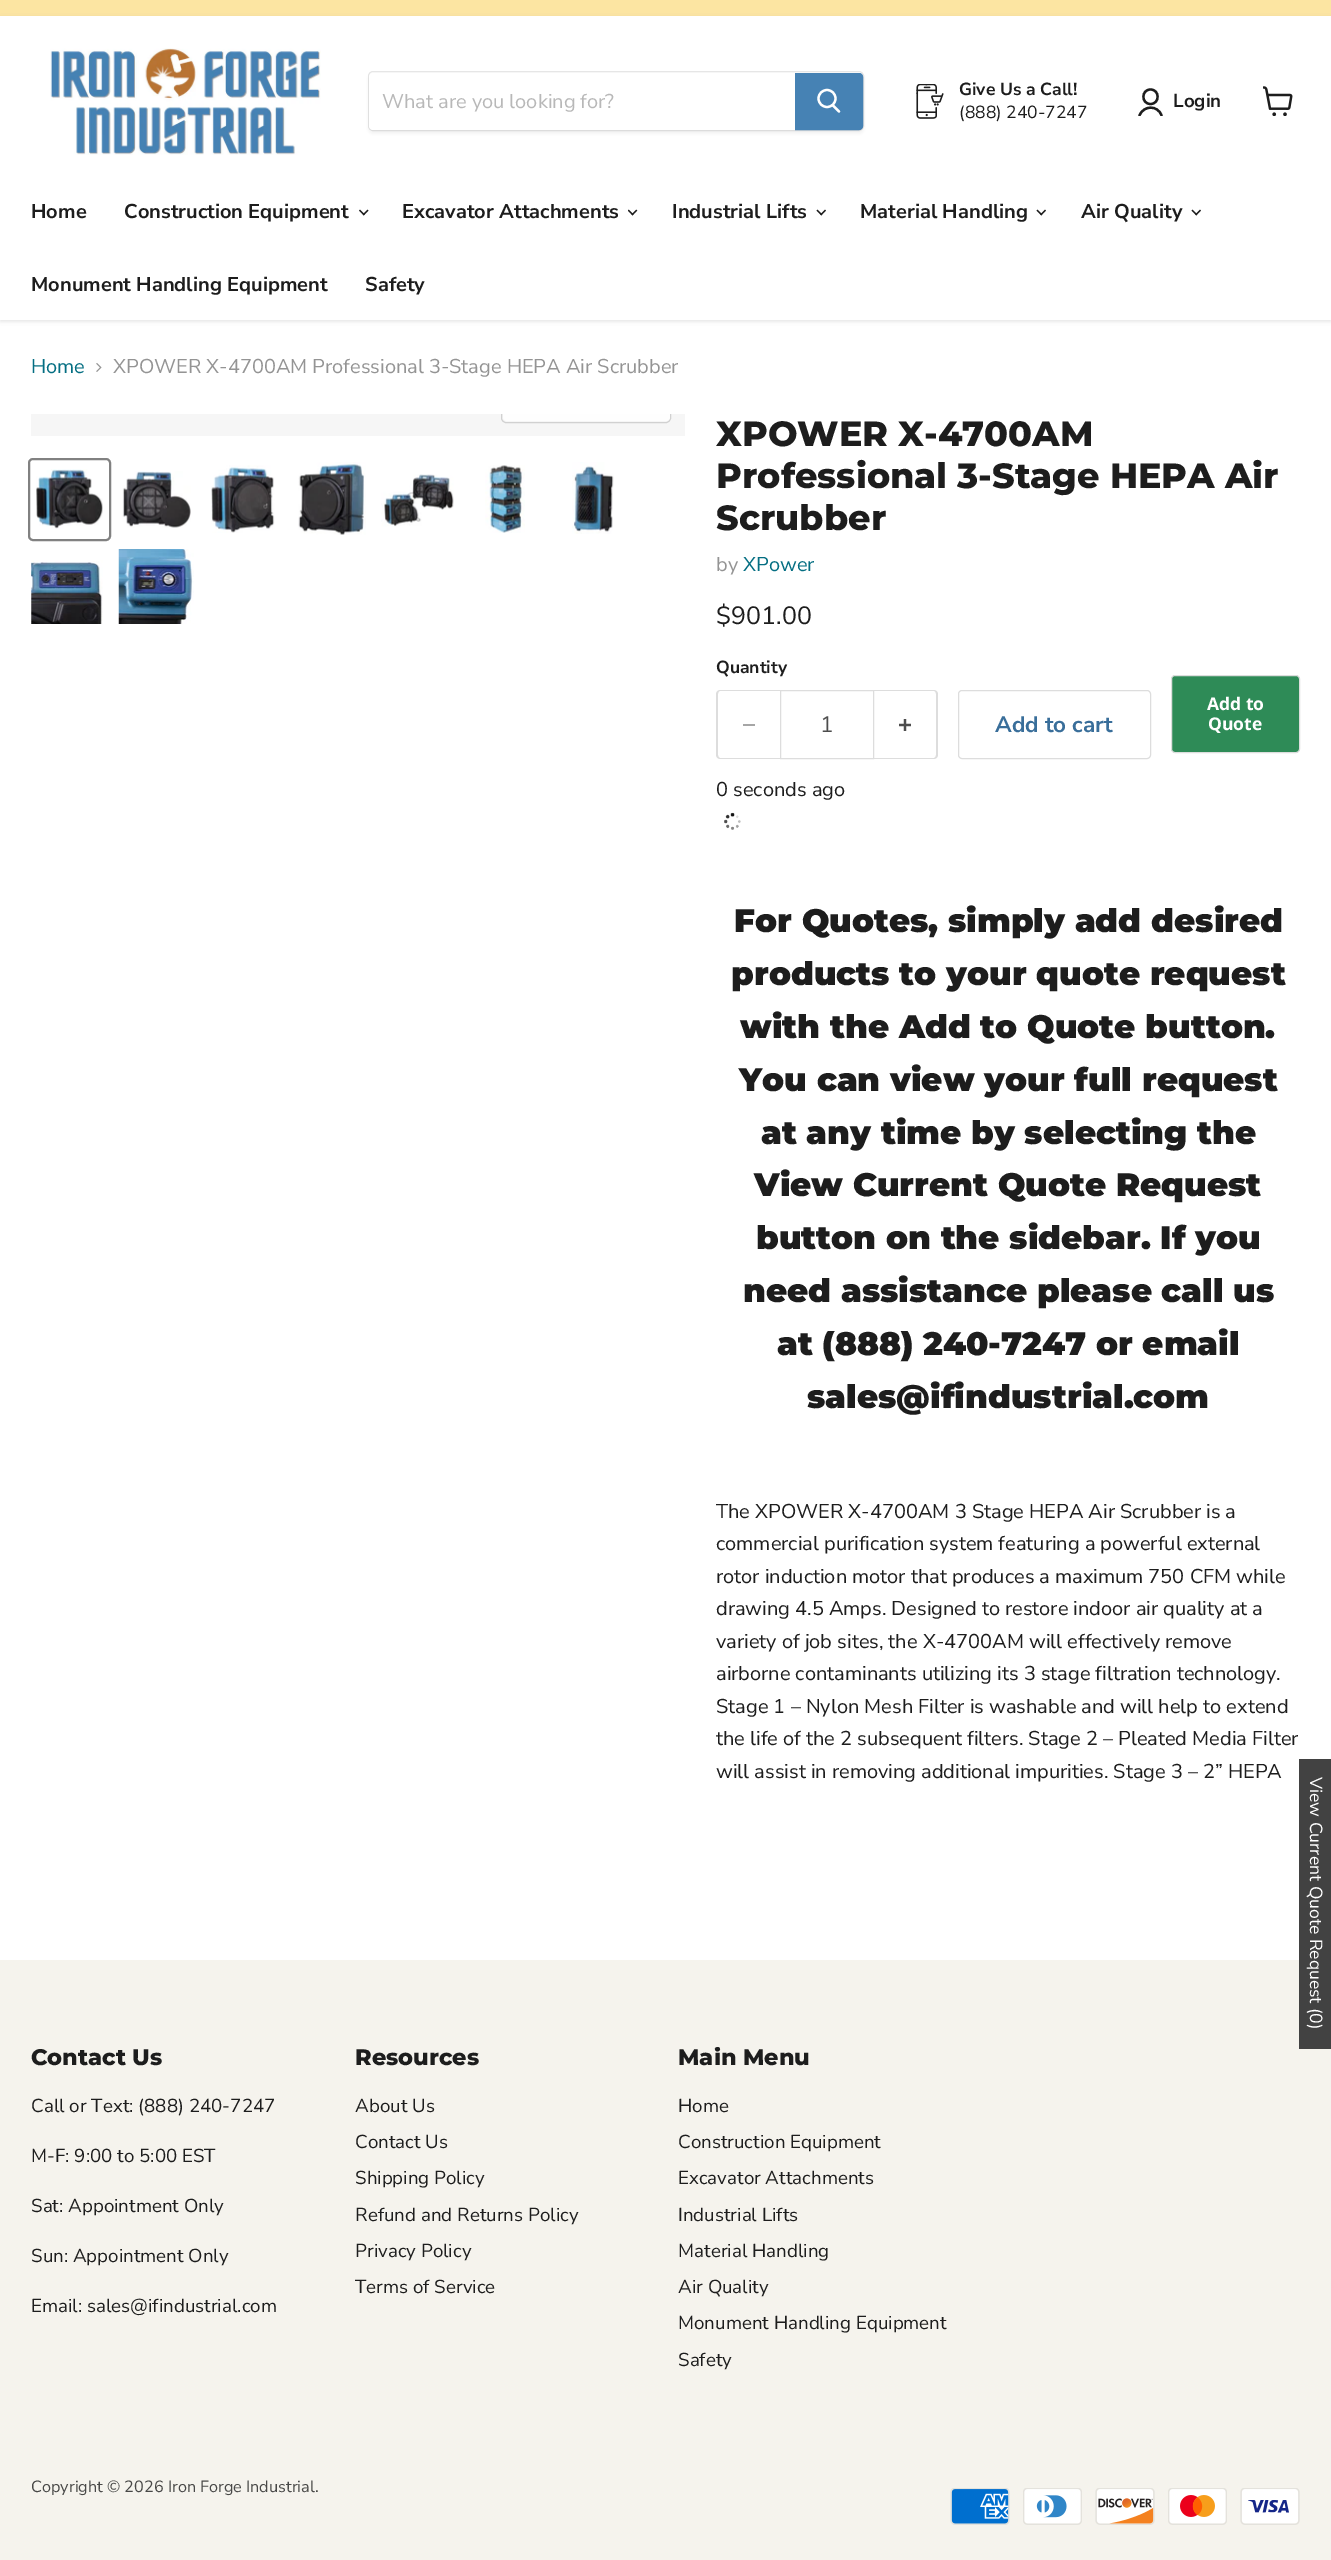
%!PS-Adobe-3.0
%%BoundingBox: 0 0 1331 2560
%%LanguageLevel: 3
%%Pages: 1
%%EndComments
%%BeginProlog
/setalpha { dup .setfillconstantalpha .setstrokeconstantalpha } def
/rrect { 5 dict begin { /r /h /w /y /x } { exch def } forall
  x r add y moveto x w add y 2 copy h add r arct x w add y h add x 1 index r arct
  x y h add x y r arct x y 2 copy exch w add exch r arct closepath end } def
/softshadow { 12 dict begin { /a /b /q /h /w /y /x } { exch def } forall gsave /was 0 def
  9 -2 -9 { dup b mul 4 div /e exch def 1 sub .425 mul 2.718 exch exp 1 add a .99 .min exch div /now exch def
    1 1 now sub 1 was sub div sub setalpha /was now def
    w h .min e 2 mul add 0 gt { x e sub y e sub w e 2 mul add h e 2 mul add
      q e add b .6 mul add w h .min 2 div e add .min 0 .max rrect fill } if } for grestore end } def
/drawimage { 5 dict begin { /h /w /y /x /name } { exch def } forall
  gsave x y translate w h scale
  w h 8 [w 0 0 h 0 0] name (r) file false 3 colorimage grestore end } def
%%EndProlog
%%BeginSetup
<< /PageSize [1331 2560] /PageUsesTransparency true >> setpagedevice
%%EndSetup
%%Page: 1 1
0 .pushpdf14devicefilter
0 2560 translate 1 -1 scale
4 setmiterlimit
1 setgray
0 0 1331 2560 rectfill
0.988 0.898 0.635 setrgbcolor
0 0 1331 16 rectfill
0.502 setgray
0 18 1331 303 0 2.5 0.25 softshadow
1 setgray
0 16 1331 304 rectfill
(images/1.raw) 50 48 271 107 drawimage
0.502 setgray
368 74 496 60 5 2 0.11 softshadow
0.2 setalpha
368.5 71.5 495 59 4.5 rrect stroke
1 setalpha
1 setgray
newpath 373 73 moveto 795 73 lineto 795 130 lineto 373 130 lineto 371 130 369 128 369 126 curveto 369 77 lineto 369 75 371 73 373 73 curveto closepath fill
0.275 0.51 0.706 setrgbcolor
newpath 795.5 73.5 moveto 859 73.5 lineto 861 73.5 862.5 75 862.5 77 curveto 862.5 126 lineto 862.5 128 861 129.5 859 129.5 curveto 795.5 129.5 lineto closepath gsave fill grestore
stroke
1 setgray
2.2 setlinewidth
1 setlinecap
newpath 839 111.5 moveto 833 105.5 lineto stroke
0 setlinecap
newpath 827 98.5 8.5 0 360 arc closepath stroke
(images/2.raw) 916 84 28 35 drawimage
0.114 setgray
2.3 setlinewidth
1 setlinecap
1 setlinejoin
newpath 1150.5 104 moveto 1160 104 1160 89.5 1150.5 89.5 curveto 1141 89.5 1141 104 1150.5 104 curveto closepath stroke
gsave
1138 88 25 28 rectclip
newpath 1161.5 115.5 moveto 1158 105 1143.5 105 1139.5 115.5 curveto stroke
grestore
(images/3.raw) 1263 86 30 30 drawimage
(images/4.raw) 359 209 10 7 drawimage
(images/5.raw) 628 209 10 7 drawimage
(images/6.raw) 816 209 10 7 drawimage
(images/6.raw) 1036 209 10 7 drawimage
(images/6.raw) 1191 209 10 7 drawimage
(images/7.raw) 96 363 6 9 drawimage
0.965 setgray
31 414 654 22 rectfill
gsave
31 414 654 22 rectclip
0.82 setgray
1 setlinewidth
0 setlinecap
0 setlinejoin
501.5 385.5 169 37 4.5 rrect stroke
grestore
0.996 setgray
newpath 503 414 moveto 670 414 lineto 670 417 lineto 670 419 668 421 666 421 curveto 507 421 lineto 505 421 503 419 503 417 curveto closepath fill
0.506 setgray
2 setlinewidth
0 setlinecap
0 setlinejoin
29 459 81 81 4 rrect stroke
(images/8.raw) 36 469 67 60 drawimage
(images/9.raw) 122 471 69 57 drawimage
(images/10.raw) 211 465 64 68 drawimage
(images/11.raw) 298 462 68 73 drawimage
(images/12.raw) 381 474 73 53 drawimage
(images/13.raw) 485 465 40 68 drawimage
(images/14.raw) 572 462 42 72 drawimage
(images/15.raw) 31 560 72 64 drawimage
(images/16.raw) 118 549 76 75 drawimage
0.867 setgray
newpath 720 690 moveto 780 690 lineto 780 759 lineto 720 759 lineto 718 759 716 757 716 755 curveto 716 694 lineto 716 692 718 690 720 690 curveto closepath 720 691 moveto 780 691 lineto 780 758 lineto 720 758 lineto 719 758 718 756 718 755 curveto 718 694 lineto 718 692 719 691 720 691 curveto closepath eofill
0.651 setgray
743 724 12 2 rectfill
0.867 setgray
1 setlinewidth
780.5 690.5 93 68 rectstroke
newpath 874 690 moveto 934 690 lineto 936 690 938 692 938 694 curveto 938 755 lineto 938 757 936 759 934 759 curveto 874 759 lineto closepath 874 691 moveto 934 691 lineto 935 691 936 692 936 694 curveto 936 755 lineto 936 756 935 758 934 758 curveto 874 758 lineto closepath eofill
(images/17.raw) 899 719 12 12 drawimage
958.5 690.5 192 68 3.5 rrect stroke
0.18 0.545 0.341 setrgbcolor
1171.5 675.5 128 77 3.5 rrect gsave fill grestore
0.867 setgray
stroke
(images/18.raw) 724 812 17 18 drawimage
0.961 0.953 0.929 setrgbcolor
0 1960 1331 600 rectfill
0.259 setgray
1299 1759 32 290 rectfill
(images/19.raw) 950 2488 60 37 drawimage
(images/20.raw) 1023 2488 59 37 drawimage
(images/21.raw) 1095 2488 60 37 drawimage
(images/22.raw) 1168 2488 59 37 drawimage
(images/23.raw) 1240 2488 60 37 drawimage
/NunitoSans-Regular [20 0 0 -20 0 0] selectfont
0.722 setgray
382 108 moveto (What are you looking for?) show
/NunitoSans-Bold [17.5 0 0 -17.5 0 0] selectfont
0.114 setgray
959 95 moveto (Give Us a Call!) show
/NunitoSans-Regular [17.5 0 0 -17.5 0 0] selectfont
959 118 moveto (\(888\) 240-7247) show
/NunitoSans-Bold [18.75 0 0 -18.75 0 0] selectfont
1173 107 moveto (Login) show
/NunitoSans-Bold [20 0 0 -20 0 0] selectfont
31 218 moveto (Home) show
124 218 moveto (Construction Equipment) show
402 218 moveto (Excavator Attachments) show
672 218 moveto (Industrial Lifts) show
860 218 moveto (Material Handling) show
1081 218 moveto (Air Quality) show
31 291 moveto (Monument Handling Equipment) show
365 291 moveto (Safety) show
/NunitoSans-Regular [20 0 0 -20 0 0] selectfont
0.016 0.431 0.51 setrgbcolor
31 373 moveto (Home) show
0.58 setgray
113 373 moveto (XPOWER X-4700AM Professional 3-Stage HEPA Air Scrubber) show
/Montserrat-ExtraBold [35 0 0 -35 0 0] selectfont
0.114 setgray
716 446 moveto (XPOWER X-4700AM) show
716 488 moveto (Professional 3-Stage HEPA Air) show
716 530 moveto (Scrubber) show
/NunitoSans-Regular [20 0 0 -20 0 0] selectfont
0.58 setgray
716 571 moveto (by) show
0.016 0.431 0.51 setrgbcolor
743 571 moveto (XPower) show
/NunitoSans-Regular [25 0 0 -25 0 0] selectfont
0.114 setgray
716 624 moveto ($901.00) show
/NunitoSans-Bold [17.5 0 0 -17.5 0 0] selectfont
716 673 moveto (Quantity) show
/NunitoSans-Regular [22.5 0 0 -22.5 0 0] selectfont
0.302 setgray
820 732 moveto (1) show
/NunitoSans-Bold [22.5 0 0 -22.5 0 0] selectfont
0.224 0.431 0.604 setrgbcolor
995 732 moveto (Add to cart) show
/OpenSans-Bold [17.5 0 0 -17.5 0 0] selectfont
1 setgray
1207 710 moveto (Add to) show
1208 730 moveto (Quote) show
/NunitoSans-Regular [20 0 0 -20 0 0] selectfont
0.114 setgray
716 796 moveto (0 seconds ago) show
/Montserrat-Black [32.5 0 0 -32.5 0 0] selectfont
734 932 moveto (For Quotes, simply add desired) show
731 985 moveto (products to your quote request) show
740 1038 moveto (with the Add to Quote button.) show
739 1091 moveto (You can view your full request) show
761 1144 moveto (at any time by selecting the) show
754 1196 moveto (View Current Quote Request) show
756 1249 moveto (button on the sidebar. If you) show
743 1302 moveto (need assistance please call us) show
777 1355 moveto (at \(888\) 240-7247 or email) show
807 1408 moveto (sales@ifindustrial.com) show
/NunitoSans-Regular [20 0 0 -20 0 0] selectfont
716 1518 moveto (The XPOWER X-4700AM 3 Stage HEPA Air Scrubber is a) show
716 1550 moveto (commercial purification system featuring a powerful external) show
716 1583 moveto (rotor induction motor that produces a maximum 750 CFM while) show
716 1615 moveto (drawing 4.5 Amps. Designed to restore indoor air quality at a) show
716 1648 moveto (variety of job sites, the X-4700AM will effectively remove) show
716 1680 moveto (airborne contaminants utilizing its 3 stage filtration technology.) show
716 1713 moveto (Stage 1 – Nylon Mesh Filter is washable and will help to extend) show
716 1745 moveto (the life of the 2 subsequent filters. Stage 2 – Pleated Media Filter) show
716 1778 moveto (will assist in removing additional impurities. Stage 3 – 2” HEPA) show
/NunitoSans-Regular [17.5 0 0 -17.5 0 0] selectfont
1 setgray
gsave 1310 1777 translate 90 rotate 0 0 moveto (View Current Quote Request \(0\)) show grestore
/Montserrat-ExtraBold [22.5 0 0 -22.5 0 0] selectfont
0.114 setgray
31 2065 moveto (Contact Us) show
/NunitoSans-Regular [18.75 0 0 -18.75 0 0] selectfont
31 2112 moveto (Call or Text: \(888\) 240-7247) show
31 2162 moveto (M-F: 9:00 to 5:00 EST) show
31 2212 moveto (Sat: Appointment Only) show
31 2262 moveto (Sun: Appointment Only) show
31 2312 moveto (Email: sales@ifindustrial.com) show
/Montserrat-ExtraBold [22.5 0 0 -22.5 0 0] selectfont
355 2065 moveto (Resources) show
/NunitoSans-Regular [18.75 0 0 -18.75 0 0] selectfont
355 2112 moveto (About Us) show
355 2148 moveto (Contact Us) show
355 2184 moveto (Shipping Policy) show
355 2221 moveto (Refund and Returns Policy) show
355 2257 moveto (Privacy Policy) show
355 2293 moveto (Terms of Service) show
/Montserrat-ExtraBold [22.5 0 0 -22.5 0 0] selectfont
678 2065 moveto (Main Menu) show
/NunitoSans-Regular [18.75 0 0 -18.75 0 0] selectfont
678 2112 moveto (Home) show
678 2148 moveto (Construction Equipment) show
678 2184 moveto (Excavator Attachments) show
678 2221 moveto (Industrial Lifts) show
678 2257 moveto (Material Handling) show
678 2293 moveto (Air Quality) show
678 2329 moveto (Monument Handling Equipment) show
678 2366 moveto (Safety) show
/NunitoSans-Regular [16.25 0 0 -16.25 0 0] selectfont
0.282 0.282 0.278 setrgbcolor
31 2492 moveto (Copyright © 2026 Iron Forge Industrial.) show
.poppdf14devicefilter showpage
%%EOF
